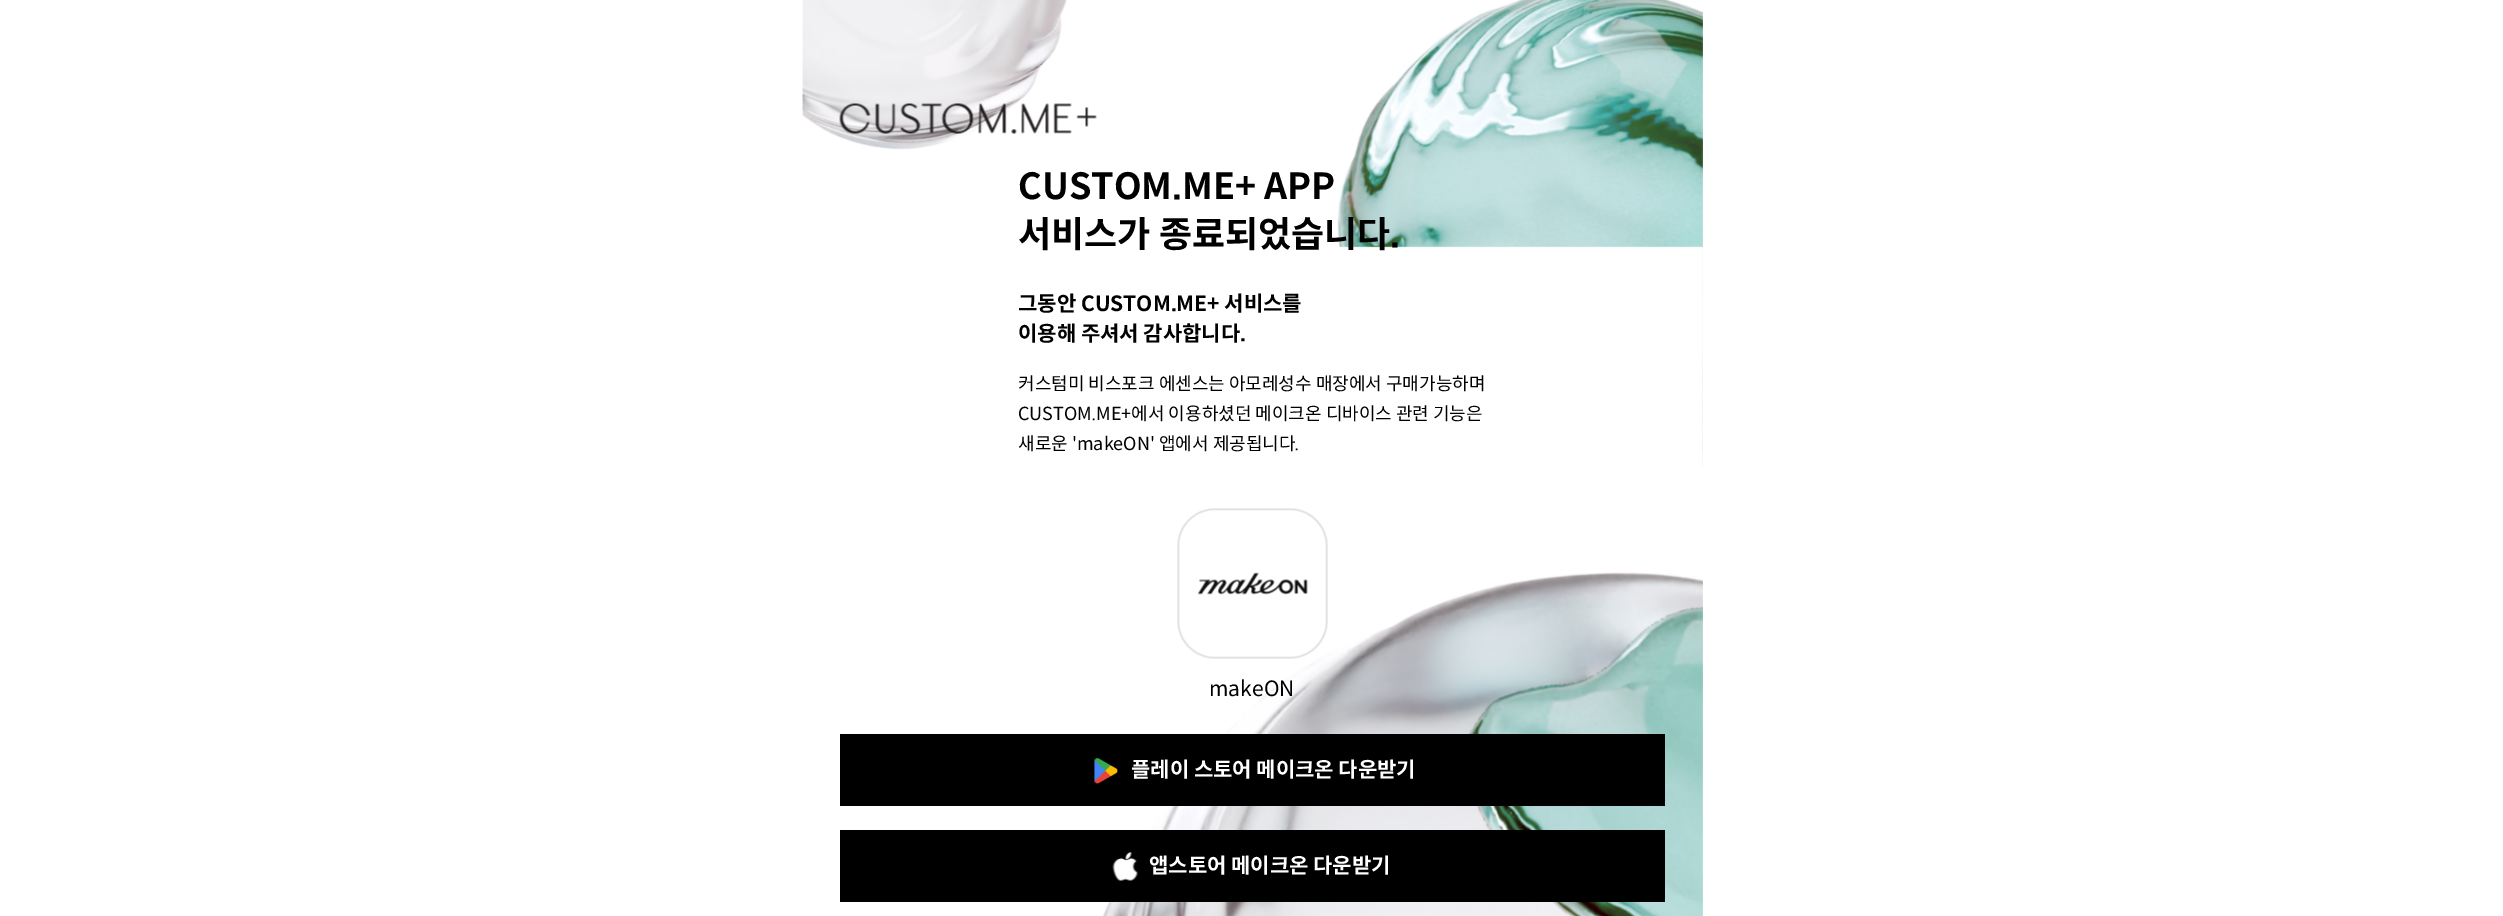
%!PS-Adobe-3.0
%%BoundingBox: 0 0 2503 916
%%LanguageLevel: 3
%%Pages: 1
%%EndComments
%%BeginProlog
/drawimage { 5 dict begin { /h /w /y /x /name } { exch def } forall
  gsave x y translate w h scale
  w h 8 [w 0 0 h 0 0] name (r) file false 3 colorimage grestore end } def
%%EndProlog
%%BeginSetup
<< /PageSize [2503 916] >> setpagedevice
%%EndSetup
%%Page: 1 1
0 916 translate 1 -1 scale
4 setmiterlimit
1 setgray
0 0 2503 916 rectfill
(images/1.raw) 802 0 901 487 drawimage
(images/2.raw) 1103 246 600 670 drawimage
(images/3.raw) 839 103 258 31 drawimage
(images/4.raw) 1177 508 151 151 drawimage
0 setgray
840 734 825 72 rectfill
(images/5.raw) 1094 758 24 26 drawimage
840 830 825 72 rectfill
(images/6.raw) 1112 852 26 29 drawimage
/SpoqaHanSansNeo-Bold [36 0 0 -36 0 0] selectfont
1018 199 moveto (CUSTOM.ME+ APP) show
1018 247 moveto (서비스가 종료되었습니다.) show
/SpoqaHanSansNeo-Bold [21 0 0 -21 0 0] selectfont
1018 311 moveto (그동안 CUSTOM.ME+ 서비스를) show
1018 341 moveto (이용해 주셔서 감사합니다.) show
/SpoqaHanSansNeo-Regular [18 0 0 -18 0 0] selectfont
1018 390 moveto (커스텀미 비스포크 에센스는 아모레성수 매장에서 구매가능하며) show
1018 420 moveto (CUSTOM.ME+에서 이용하셨던 메이크온 디바이스 관련 기능은) show
1018 450 moveto (새로운 'makeON' 앱에서 제공됩니다.) show
/SpoqaHanSansNeo-Regular [21 0 0 -21 0 0] selectfont
1209 696 moveto (makeON) show
/SpoqaHanSansNeo-Bold [21 0 0 -21 0 0] selectfont
1 setgray
1131 777 moveto (플레이 스토어 메이크온 다운받기) show
1149 873 moveto (앱스토어 메이크온 다운받기) show
showpage
%%EOF
